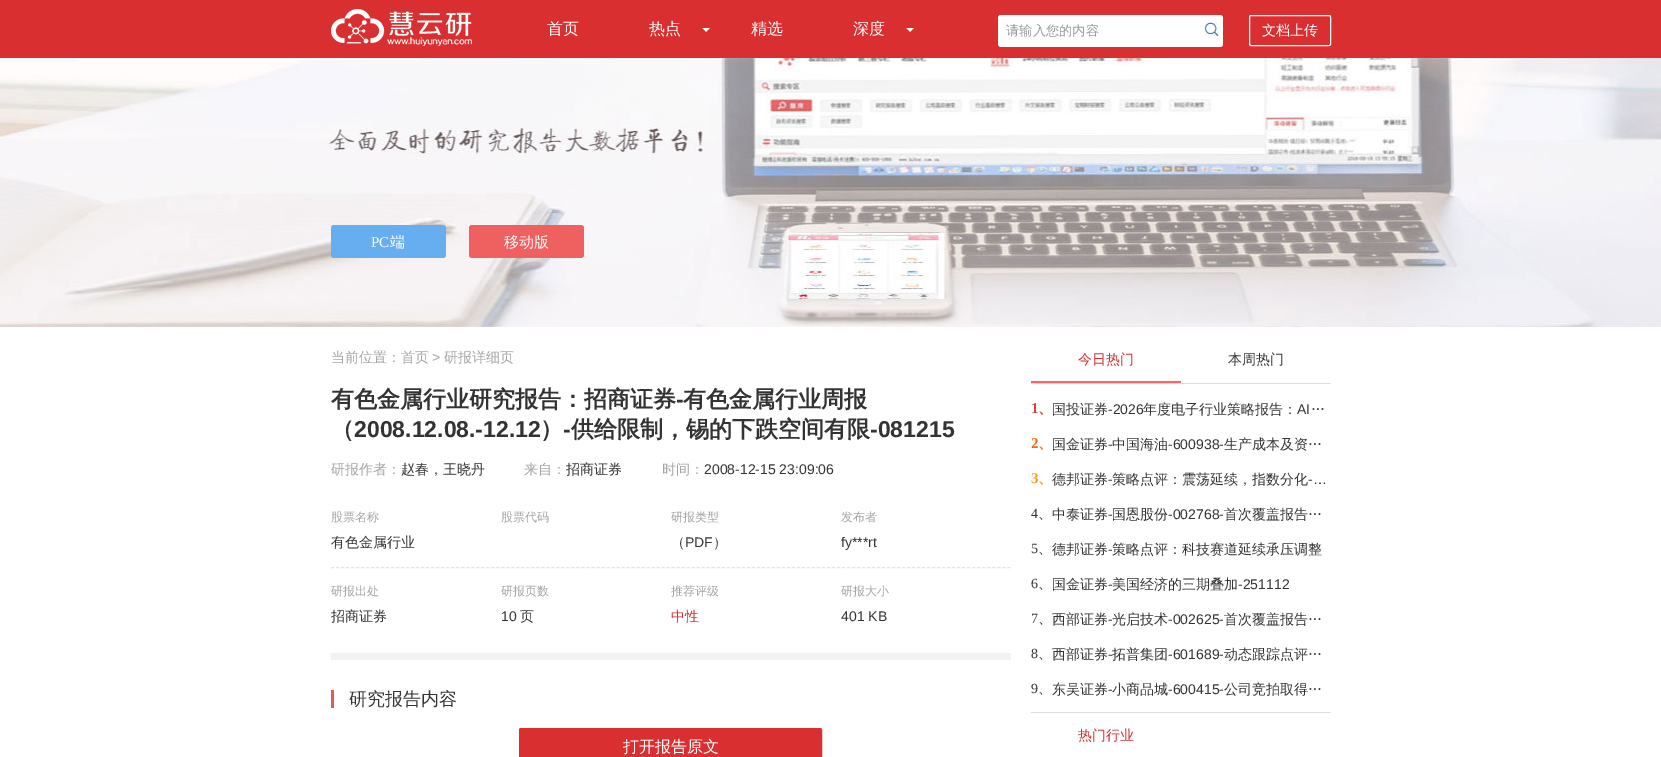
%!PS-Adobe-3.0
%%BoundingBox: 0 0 1661 757
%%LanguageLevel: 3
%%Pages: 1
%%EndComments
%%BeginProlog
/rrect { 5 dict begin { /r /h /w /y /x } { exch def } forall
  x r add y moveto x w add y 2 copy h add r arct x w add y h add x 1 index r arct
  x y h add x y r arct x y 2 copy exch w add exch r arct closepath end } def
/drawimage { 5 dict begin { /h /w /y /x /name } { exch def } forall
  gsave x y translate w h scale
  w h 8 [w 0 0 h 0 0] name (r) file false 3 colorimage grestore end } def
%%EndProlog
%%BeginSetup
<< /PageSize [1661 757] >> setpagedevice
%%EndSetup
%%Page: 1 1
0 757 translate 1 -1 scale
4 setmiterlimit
1 setgray
0 0 1661 757 rectfill
0.851 0.184 0.188 setrgbcolor
0 0 1661 58 rectfill
(images/1.raw) 331 9 141 37 drawimage
(images/2.raw) 702 28 8 4 drawimage
(images/2.raw) 906 28 8 4 drawimage
1 setgray
998 15 225 32 3 rrect fill
(images/3.raw) 1204 22 15 14 drawimage
1249.5 15.5 81 30 1.5 rrect stroke
(images/4.raw) 0 58 1661 269 drawimage
0.404 0.682 0.941 setrgbcolor
331 225 115 33 3 rrect fill
0.937 0.38 0.376 setrgbcolor
469 225 115 33 3 rrect fill
0.89 setgray
[3 2.01] 0 setdash
newpath 331 567.5 moveto 1011 567.5 lineto stroke
0.949 setgray
331 653 680 7 rectfill
0.882 0.357 0.361 setrgbcolor
331 690 3 18 rectfill
0.851 0.184 0.188 setrgbcolor
519.5 728.5 302 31 1.5 rrect gsave fill grestore
[] 0 setdash
stroke
0.867 setgray
1031 383 300 1 rectfill
0.996 0.384 0.388 setrgbcolor
1031 381 150 2 rectfill
0.867 setgray
1031 712 300 1 rectfill
/WenQuanYiZenHei-Medium [16 0 0 -16 0 0] selectfont
1 setgray
547 34 moveto (首页) show
649 34 moveto (热点) show
751 34 moveto (精选) show
853 34 moveto (深度) show
/WenQuanYiZenHei-Medium [13.25 0 0 -13.25 0 0] selectfont
0.6 setgray
1006 35 moveto (请输入您的内容) show
/WenQuanYiZenHei-Medium [14 0 0 -14 0 0] selectfont
1 setgray
1262 35 moveto (文档上传) show
/LiberationSerif-Regular [15 0 0 -15 0 0] selectfont
371 247 moveto (PC) show
/WenQuanYiZenHei-Medium [15 0 0 -15 0 0] selectfont
390 247 moveto (端) show
504 247 moveto (移动版) show
/WenQuanYiZenHei-Medium [14 0 0 -14 0 0] selectfont
0.643 setgray
331 362 moveto (当前位置：首页) show
/LiberationSans-Regular [14 0 0 -14 0 0] selectfont
432 362 moveto (>) show
/WenQuanYiZenHei-Medium [14 0 0 -14 0 0] selectfont
444 362 moveto (研报详细页) show
/WenQuanYiZenHei-Bold [23 0 0 -23 0 0] selectfont
0.2 setgray
331 407 moveto (有色金属行业研究报告：招商证券) show
/LiberationSans-Bold [23 0 0 -23 0 0] selectfont
676 407 moveto (-) show
/WenQuanYiZenHei-Bold [23 0 0 -23 0 0] selectfont
683 407 moveto (有色金属行业周报) show
331 437 moveto (（) show
/LiberationSans-Bold [23 0 0 -23 0 0] selectfont
354 437 moveto (2008.12.08.-12.12) show
/WenQuanYiZenHei-Bold [23 0 0 -23 0 0] selectfont
540 437 moveto (）) show
/LiberationSans-Bold [23 0 0 -23 0 0] selectfont
563 437 moveto (-) show
/WenQuanYiZenHei-Bold [23 0 0 -23 0 0] selectfont
571 437 moveto (供给限制，锡的下跌空间有限) show
/LiberationSans-Bold [23 0 0 -23 0 0] selectfont
870 437 moveto (-081215) show
/WenQuanYiZenHei-Medium [14 0 0 -14 0 0] selectfont
0.643 setgray
331 474 moveto (研报作者：) show
0.2 setgray
401 474 moveto (赵春，王晓丹) show
0.643 setgray
524 474 moveto (来自：) show
0.2 setgray
566 474 moveto (招商证券) show
0.643 setgray
662 474 moveto (时间：) show
/LiberationSans-Regular [14 0 0 -14 0 0] selectfont
0.2 setgray
704 474 moveto (2008-12-15 23:09:06) show
/WenQuanYiZenHei-Medium [12 0 0 -12 0 0] selectfont
0.643 setgray
331 521 moveto (股票名称) show
/WenQuanYiZenHei-Medium [14 0 0 -14 0 0] selectfont
0.2 setgray
331 547 moveto (有色金属行业) show
/WenQuanYiZenHei-Medium [12 0 0 -12 0 0] selectfont
0.643 setgray
501 521 moveto (股票代码) show
671 521 moveto (研报类型) show
/WenQuanYiZenHei-Medium [14 0 0 -14 0 0] selectfont
0.2 setgray
671 547 moveto (（) show
/LiberationSans-Regular [14 0 0 -14 0 0] selectfont
685 547 moveto (PDF) show
/WenQuanYiZenHei-Medium [14 0 0 -14 0 0] selectfont
713 547 moveto (）) show
/WenQuanYiZenHei-Medium [12 0 0 -12 0 0] selectfont
0.643 setgray
841 521 moveto (发布者) show
/LiberationSans-Regular [14 0 0 -14 0 0] selectfont
0.2 setgray
841 547 moveto (fy***rt) show
/WenQuanYiZenHei-Medium [12 0 0 -12 0 0] selectfont
0.643 setgray
331 595 moveto (研报出处) show
gsave
331 327 1000 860 rectclip
/WenQuanYiZenHei-Medium [14 0 0 -14 0 0] selectfont
0.2 setgray
331 621 moveto (招商证券) show
grestore
501 595 moveto (研报页数) show
/LiberationSans-Regular [14 0 0 -14 0 0] selectfont
0.2 setgray
501 621 moveto (10) show
/WenQuanYiZenHei-Medium [14 0 0 -14 0 0] selectfont
520 621 moveto (页) show
/WenQuanYiZenHei-Medium [12 0 0 -12 0 0] selectfont
0.643 setgray
671 595 moveto (推荐评级) show
/WenQuanYiZenHei-Medium [14 0 0 -14 0 0] selectfont
0.847 0.18 0.18 setrgbcolor
671 621 moveto (中性) show
/WenQuanYiZenHei-Medium [12 0 0 -12 0 0] selectfont
0.643 setgray
841 595 moveto (研报大小) show
/LiberationSans-Regular [14 0 0 -14 0 0] selectfont
0.2 setgray
841 621 moveto (401 KB) show
/WenQuanYiZenHei-Medium [18 0 0 -18 0 0] selectfont
349 705 moveto (研究报告内容) show
/WenQuanYiZenHei-Medium [16 0 0 -16 0 0] selectfont
1 setgray
623 752 moveto (打开报告原文) show
/WenQuanYiZenHei-Medium [14 0 0 -14 0 0] selectfont
0.847 0.18 0.18 setrgbcolor
1078 364 moveto (今日热门) show
0.2 setgray
1228 364 moveto (本周热门) show
/LiberationSerif-Bold [15 0 0 -15 0 0] selectfont
0.839 0.255 0.239 setrgbcolor
1031 413 moveto (1) show
/WenQuanYiZenHei-Bold [15 0 0 -15 0 0] selectfont
1038 413 moveto (、) show
/WenQuanYiZenHei-Medium [14 0 0 -14 0 0] selectfont
0.2 setgray
1052 414 moveto (国投证券) show
/LiberationSans-Regular [14 0 0 -14 0 0] selectfont
1108 414 moveto (-2026) show
/WenQuanYiZenHei-Medium [14 0 0 -14 0 0] selectfont
1143 414 moveto (年度电子行业策略报告：) show
/LiberationSans-Regular [14 0 0 -14 0 0] selectfont
1297 414 moveto (AI) show
/WenQuanYiZenHei-Medium [14 0 0 -14 0 0] selectfont
1311 414 moveto (…) show
/LiberationSerif-Bold [15 0 0 -15 0 0] selectfont
0.949 0.396 0.043 setrgbcolor
1031 448 moveto (2) show
/WenQuanYiZenHei-Bold [15 0 0 -15 0 0] selectfont
1038 448 moveto (、) show
/WenQuanYiZenHei-Medium [14 0 0 -14 0 0] selectfont
0.2 setgray
1052 449 moveto (国金证券) show
/LiberationSans-Regular [14 0 0 -14 0 0] selectfont
1108 449 moveto (-) show
/WenQuanYiZenHei-Medium [14 0 0 -14 0 0] selectfont
1112 449 moveto (中国海油) show
/LiberationSans-Regular [14 0 0 -14 0 0] selectfont
1168 449 moveto (-600938-) show
/WenQuanYiZenHei-Medium [14 0 0 -14 0 0] selectfont
1224 449 moveto (生产成本及资…) show
/LiberationSerif-Bold [15 0 0 -15 0 0] selectfont
0.969 0.612 0.102 setrgbcolor
1031 483 moveto (3) show
/WenQuanYiZenHei-Bold [15 0 0 -15 0 0] selectfont
1038 483 moveto (、) show
/WenQuanYiZenHei-Medium [14 0 0 -14 0 0] selectfont
0.2 setgray
1052 484 moveto (德邦证券) show
/LiberationSans-Regular [14 0 0 -14 0 0] selectfont
1108 484 moveto (-) show
/WenQuanYiZenHei-Medium [14 0 0 -14 0 0] selectfont
1112 484 moveto (策略点评：震荡延续，指数分化) show
/LiberationSans-Regular [14 0 0 -14 0 0] selectfont
1308 484 moveto (-…) show
/LiberationSerif-Regular [14 0 0 -14 0 0] selectfont
1031 518 moveto (4) show
/WenQuanYiZenHei-Medium [14 0 0 -14 0 0] selectfont
1038 518 moveto (、) show
1052 519 moveto (中泰证券) show
/LiberationSans-Regular [14 0 0 -14 0 0] selectfont
1108 519 moveto (-) show
/WenQuanYiZenHei-Medium [14 0 0 -14 0 0] selectfont
1112 519 moveto (国恩股份) show
/LiberationSans-Regular [14 0 0 -14 0 0] selectfont
1168 519 moveto (-002768-) show
/WenQuanYiZenHei-Medium [14 0 0 -14 0 0] selectfont
1224 519 moveto (首次覆盖报告…) show
/LiberationSerif-Regular [14 0 0 -14 0 0] selectfont
1031 553 moveto (5) show
/WenQuanYiZenHei-Medium [14 0 0 -14 0 0] selectfont
1038 553 moveto (、) show
1052 554 moveto (德邦证券) show
/LiberationSans-Regular [14 0 0 -14 0 0] selectfont
1108 554 moveto (-) show
/WenQuanYiZenHei-Medium [14 0 0 -14 0 0] selectfont
1112 554 moveto (策略点评：科技赛道延续承压调整) show
/LiberationSerif-Regular [14 0 0 -14 0 0] selectfont
1031 588 moveto (6) show
/WenQuanYiZenHei-Medium [14 0 0 -14 0 0] selectfont
1038 588 moveto (、) show
1052 589 moveto (国金证券) show
/LiberationSans-Regular [14 0 0 -14 0 0] selectfont
1108 589 moveto (-) show
/WenQuanYiZenHei-Medium [14 0 0 -14 0 0] selectfont
1112 589 moveto (美国经济的三期叠加) show
/LiberationSans-Regular [14 0 0 -14 0 0] selectfont
1238 589 moveto (-251112) show
/LiberationSerif-Regular [14 0 0 -14 0 0] selectfont
1031 623 moveto (7) show
/WenQuanYiZenHei-Medium [14 0 0 -14 0 0] selectfont
1038 623 moveto (、) show
1052 624 moveto (西部证券) show
/LiberationSans-Regular [14 0 0 -14 0 0] selectfont
1108 624 moveto (-) show
/WenQuanYiZenHei-Medium [14 0 0 -14 0 0] selectfont
1112 624 moveto (光启技术) show
/LiberationSans-Regular [14 0 0 -14 0 0] selectfont
1168 624 moveto (-002625-) show
/WenQuanYiZenHei-Medium [14 0 0 -14 0 0] selectfont
1224 624 moveto (首次覆盖报告…) show
/LiberationSerif-Regular [14 0 0 -14 0 0] selectfont
1031 658 moveto (8) show
/WenQuanYiZenHei-Medium [14 0 0 -14 0 0] selectfont
1038 658 moveto (、) show
1052 659 moveto (西部证券) show
/LiberationSans-Regular [14 0 0 -14 0 0] selectfont
1108 659 moveto (-) show
/WenQuanYiZenHei-Medium [14 0 0 -14 0 0] selectfont
1112 659 moveto (拓普集团) show
/LiberationSans-Regular [14 0 0 -14 0 0] selectfont
1168 659 moveto (-601689-) show
/WenQuanYiZenHei-Medium [14 0 0 -14 0 0] selectfont
1224 659 moveto (动态跟踪点评…) show
/LiberationSerif-Regular [14 0 0 -14 0 0] selectfont
1031 693 moveto (9) show
/WenQuanYiZenHei-Medium [14 0 0 -14 0 0] selectfont
1038 693 moveto (、) show
1052 694 moveto (东吴证券) show
/LiberationSans-Regular [14 0 0 -14 0 0] selectfont
1108 694 moveto (-) show
/WenQuanYiZenHei-Medium [14 0 0 -14 0 0] selectfont
1112 694 moveto (小商品城) show
/LiberationSans-Regular [14 0 0 -14 0 0] selectfont
1168 694 moveto (-600415-) show
/WenQuanYiZenHei-Medium [14 0 0 -14 0 0] selectfont
1224 694 moveto (公司竞拍取得…) show
0.847 0.18 0.18 setrgbcolor
1078 740 moveto (热门行业) show
showpage
%%EOF
